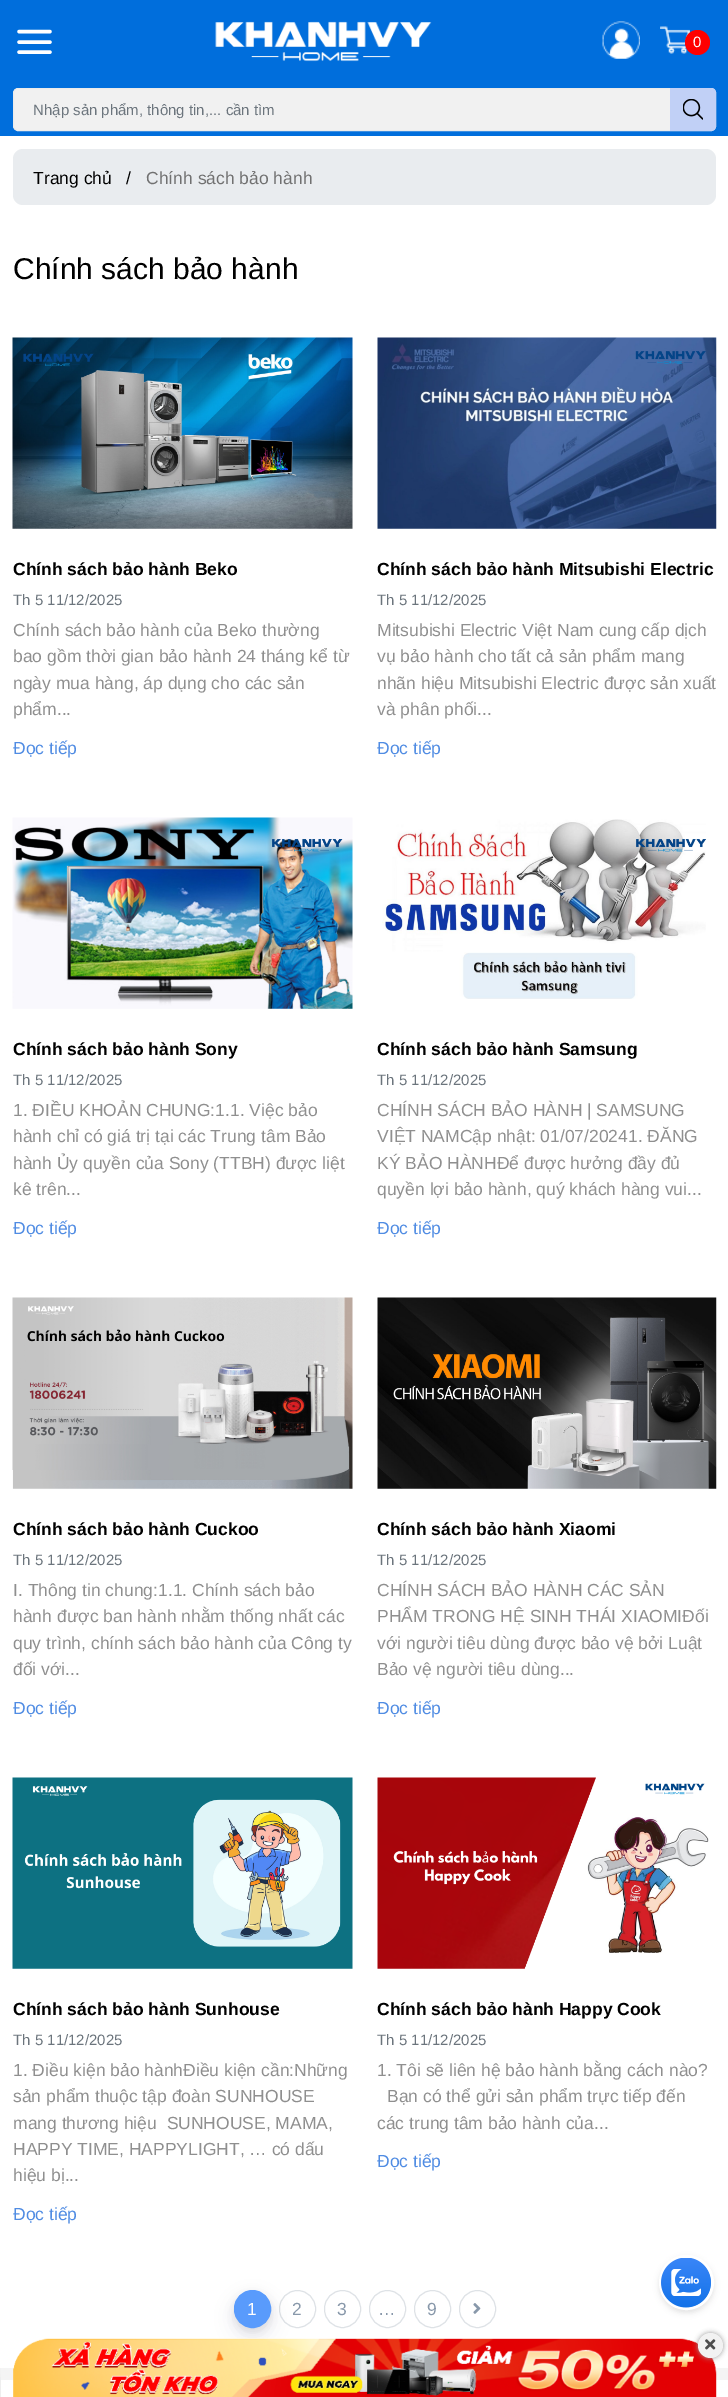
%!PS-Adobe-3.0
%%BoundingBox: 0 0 728 2397
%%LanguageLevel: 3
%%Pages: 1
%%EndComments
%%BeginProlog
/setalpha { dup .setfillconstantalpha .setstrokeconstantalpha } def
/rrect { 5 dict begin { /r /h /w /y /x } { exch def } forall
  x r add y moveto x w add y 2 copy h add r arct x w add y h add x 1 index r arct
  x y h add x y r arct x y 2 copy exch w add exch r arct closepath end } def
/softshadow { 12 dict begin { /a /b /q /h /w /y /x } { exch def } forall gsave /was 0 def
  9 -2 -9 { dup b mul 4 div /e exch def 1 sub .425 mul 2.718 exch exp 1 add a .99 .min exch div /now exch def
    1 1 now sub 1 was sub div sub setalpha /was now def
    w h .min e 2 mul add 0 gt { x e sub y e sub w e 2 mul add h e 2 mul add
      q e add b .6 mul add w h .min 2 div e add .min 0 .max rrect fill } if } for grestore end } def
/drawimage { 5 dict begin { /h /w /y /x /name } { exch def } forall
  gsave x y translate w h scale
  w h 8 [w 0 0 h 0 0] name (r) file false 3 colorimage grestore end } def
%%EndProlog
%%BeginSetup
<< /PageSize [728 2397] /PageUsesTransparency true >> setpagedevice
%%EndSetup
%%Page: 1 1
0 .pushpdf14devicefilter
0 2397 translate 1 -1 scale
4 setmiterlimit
1 setgray
0 0 728 2397 rectfill
0 0.431 0.863 setrgbcolor
0 0 728 136 rectfill
1 setgray
3.4 setlinewidth
1 setlinecap
1 setlinejoin
newpath 19 42 moveto 50 42 lineto 19 31.5 moveto 50 31.5 lineto 19 52 moveto 50 52 lineto stroke
(images/1.raw) 215 21 217 41 drawimage
(images/2.raw) 602 21 38 38 drawimage
(images/3.raw) 660 26 30 28 drawimage
1 0 0 setrgbcolor
newpath 697.5 42.5 12.5 0 360 arc closepath fill
0.945 setgray
13.5 88.5 702 42 4.5 rrect gsave fill grestore
0.922 setgray
1 setlinewidth
0 setlinecap
0 setlinejoin
stroke
0.757 0.816 0.965 setrgbcolor
newpath 670 88 moveto 711 88 lineto 714 88 716 90 716 93 curveto 716 126 lineto 716 129 714 131 711 131 curveto 670 131 lineto closepath fill
(images/4.raw) 683 99 20 21 drawimage
0.914 0.925 0.937 setrgbcolor
13 149 703 56 10 rrect fill
(images/5.raw) 12 337 341 192 drawimage
(images/6.raw) 377 337 340 192 drawimage
(images/7.raw) 12 817 341 192 drawimage
(images/8.raw) 382 819 324 180 drawimage
(images/9.raw) 12 1297 341 192 drawimage
(images/10.raw) 377 1297 340 192 drawimage
(images/11.raw) 12 1777 341 192 drawimage
(images/12.raw) 377 1777 332 192 drawimage
0.871 0.886 0.902 setrgbcolor
279.5 2290.5 36 37 18 rrect stroke
0 setgray
234 2294 37 37 18.5 4 0.08 softshadow
0.196 0.196 0.365 setrgbcolor
234 2299 37 37 18.5 9 0.1 softshadow
0.349 0.608 0.988 setrgbcolor
234.5 2290.5 36 37 18 rrect gsave fill grestore
stroke
0.871 0.886 0.902 setrgbcolor
324.5 2290.5 36 37 18 rrect stroke
369.5 2290.5 36 37 18 rrect stroke
414.5 2290.5 36 37 18 rrect stroke
459.5 2290.5 36 37 18 rrect stroke
(images/13.raw) 473 2303 8 11 drawimage
0.957 setgray
newpath 0 2368 moveto 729 2368 lineto 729 2380 lineto 1 2380 lineto closepath fill
0.933 setgray
newpath 0 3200 moveto 0 2368 lineto 1 2380 lineto 1 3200 lineto closepath fill
0 setgray
659 2258 55 55 27.5 3 0.11 softshadow
1 setgray
3 setlinewidth
newpath 686.5 2282.5 26 0 360 arc closepath stroke
(images/14.raw) 661 2258 50 50 drawimage
(images/16.raw) 13 2338 704 59 drawimage
0.616 setgray
698 2333 25 25 12.5 2.5 1 softshadow
0.949 setgray
newpath 710.5 2345.5 12.5 0 360 arc closepath fill
(images/15.raw) 705 2339 11 11 drawimage
/LiberationSans-Regular [15 0 0 -15 0 0] selectfont
1 setgray
693 47 moveto (0) show
0.424 0.459 0.49 setrgbcolor
33 115 moveto (Nhập sản phẩm, thông tin,... cần tìm) show
/LiberationSans-Regular [17.5 0 0 -17.5 0 0] selectfont
0 setgray
33 184 moveto (Trang chủ) show
126 184 moveto (/) show
0.443 setgray
146 184 moveto (Chính sách bảo hành) show
/LiberationSans-Regular [30 0 0 -30 0 0] selectfont
0 setgray
13 279 moveto (Chính sách bảo hành) show
/LiberationSans-Bold [17.5 0 0 -17.5 0 0] selectfont
13 575 moveto (Chính sách bảo hành Beko) show
/LiberationSans-Regular [15 0 0 -15 0 0] selectfont
0.424 0.459 0.49 setrgbcolor
13 605 moveto (Th 5 11/12/2025) show
/LiberationSans-Regular [17.5 0 0 -17.5 0 0] selectfont
0.561 setgray
13 636 moveto (Chính sách bảo hành của Beko thường) show
13 662 moveto (bao gồm thời gian bảo hành 24 tháng kể từ) show
13 689 moveto (ngày mua hàng, áp dụng cho các sản) show
13 715 moveto (phẩm...) show
0.314 0.549 0.89 setrgbcolor
13 754 moveto (Đọc tiếp) show
/LiberationSans-Bold [17.5 0 0 -17.5 0 0] selectfont
0 setgray
377 575 moveto (Chính sách bảo hành Mitsubishi Electric) show
/LiberationSans-Regular [15 0 0 -15 0 0] selectfont
0.424 0.459 0.49 setrgbcolor
377 605 moveto (Th 5 11/12/2025) show
/LiberationSans-Regular [17.5 0 0 -17.5 0 0] selectfont
0.561 setgray
377 636 moveto (Mitsubishi Electric Việt Nam cung cấp dịch) show
377 662 moveto (vụ bảo hành cho tất cả sản phẩm mang) show
377 689 moveto (nhãn hiệu Mitsubishi Electric được sản xuất) show
377 715 moveto (và phân phối...) show
0.314 0.549 0.89 setrgbcolor
377 754 moveto (Đọc tiếp) show
/LiberationSans-Bold [17.5 0 0 -17.5 0 0] selectfont
0 setgray
13 1055 moveto (Chính sách bảo hành Sony) show
/LiberationSans-Regular [15 0 0 -15 0 0] selectfont
0.424 0.459 0.49 setrgbcolor
13 1085 moveto (Th 5 11/12/2025) show
/LiberationSans-Regular [17.5 0 0 -17.5 0 0] selectfont
0.561 setgray
13 1116 moveto (1. ĐIỀU KHOẢN CHUNG:1.1. Việc bảo) show
13 1142 moveto (hành chỉ có giá trị tại các Trung tâm Bảo) show
13 1169 moveto (hành Ủy quyền của Sony \(TTBH\) được liệt) show
13 1195 moveto (kê trên...) show
0.314 0.549 0.89 setrgbcolor
13 1234 moveto (Đọc tiếp) show
/LiberationSans-Bold [17.5 0 0 -17.5 0 0] selectfont
0 setgray
377 1055 moveto (Chính sách bảo hành Samsung) show
/LiberationSans-Regular [15 0 0 -15 0 0] selectfont
0.424 0.459 0.49 setrgbcolor
377 1085 moveto (Th 5 11/12/2025) show
/LiberationSans-Regular [17.5 0 0 -17.5 0 0] selectfont
0.561 setgray
377 1116 moveto (CHÍNH SÁCH BẢO HÀNH | SAMSUNG) show
377 1142 moveto (VIỆT NAMCập nhật: 01/07/20241. ĐĂNG) show
377 1169 moveto (KÝ BẢO HÀNHĐể được hưởng đầy đủ) show
377 1195 moveto (quyền lợi bảo hành, quý khách hàng vui...) show
0.314 0.549 0.89 setrgbcolor
377 1234 moveto (Đọc tiếp) show
/LiberationSans-Bold [17.5 0 0 -17.5 0 0] selectfont
0 setgray
13 1535 moveto (Chính sách bảo hành Cuckoo) show
/LiberationSans-Regular [15 0 0 -15 0 0] selectfont
0.424 0.459 0.49 setrgbcolor
13 1565 moveto (Th 5 11/12/2025) show
/LiberationSans-Regular [17.5 0 0 -17.5 0 0] selectfont
0.561 setgray
13 1596 moveto (I. Thông tin chung:1.1. Chính sách bảo) show
13 1622 moveto (hành được ban hành nhằm thống nhất các) show
13 1649 moveto (quy trình, chính sách bảo hành của Công ty) show
13 1675 moveto (đối với...) show
0.314 0.549 0.89 setrgbcolor
13 1714 moveto (Đọc tiếp) show
/LiberationSans-Bold [17.5 0 0 -17.5 0 0] selectfont
0 setgray
377 1535 moveto (Chính sách bảo hành Xiaomi) show
/LiberationSans-Regular [15 0 0 -15 0 0] selectfont
0.424 0.459 0.49 setrgbcolor
377 1565 moveto (Th 5 11/12/2025) show
/LiberationSans-Regular [17.5 0 0 -17.5 0 0] selectfont
0.561 setgray
377 1596 moveto (CHÍNH SÁCH BẢO HÀNH CÁC SẢN) show
377 1622 moveto (PHẨM TRONG HỆ SINH THÁI XIAOMIĐối) show
377 1649 moveto (với người tiêu dùng được bảo vệ bởi Luật) show
377 1675 moveto (Bảo vệ người tiêu dùng...) show
0.314 0.549 0.89 setrgbcolor
377 1714 moveto (Đọc tiếp) show
/LiberationSans-Bold [17.5 0 0 -17.5 0 0] selectfont
0 setgray
13 2015 moveto (Chính sách bảo hành Sunhouse) show
/LiberationSans-Regular [15 0 0 -15 0 0] selectfont
0.424 0.459 0.49 setrgbcolor
13 2045 moveto (Th 5 11/12/2025) show
/LiberationSans-Regular [17.5 0 0 -17.5 0 0] selectfont
0.561 setgray
13 2076 moveto (1. Điều kiện bảo hànhĐiều kiện cần:Những) show
13 2102 moveto (sản phẩm thuộc tập đoàn SUNHOUSE) show
13 2129 moveto (mang thương hiệu  SUNHOUSE, MAMA,) show
13 2155 moveto (HAPPY TIME, HAPPYLIGHT, … có dấu) show
13 2181 moveto (hiệu bị...) show
0.314 0.549 0.89 setrgbcolor
13 2220 moveto (Đọc tiếp) show
/LiberationSans-Bold [17.5 0 0 -17.5 0 0] selectfont
0 setgray
377 2015 moveto (Chính sách bảo hành Happy Cook) show
/LiberationSans-Regular [15 0 0 -15 0 0] selectfont
0.424 0.459 0.49 setrgbcolor
377 2045 moveto (Th 5 11/12/2025) show
/LiberationSans-Regular [17.5 0 0 -17.5 0 0] selectfont
0.561 setgray
377 2076 moveto (1. Tôi sẽ liên hệ bảo hành bằng cách nào?) show
387 2102 moveto (Bạn có thể gửi sản phẩm trực tiếp đến) show
377 2129 moveto (các trung tâm bảo hành của...) show
0.314 0.549 0.89 setrgbcolor
377 2167 moveto (Đọc tiếp) show
1 setgray
247 2315 moveto (1) show
0.533 0.596 0.667 setrgbcolor
292 2315 moveto (2) show
337 2315 moveto (3) show
378 2315 moveto (…) show
427 2315 moveto (9) show
.poppdf14devicefilter showpage
%%EOF
